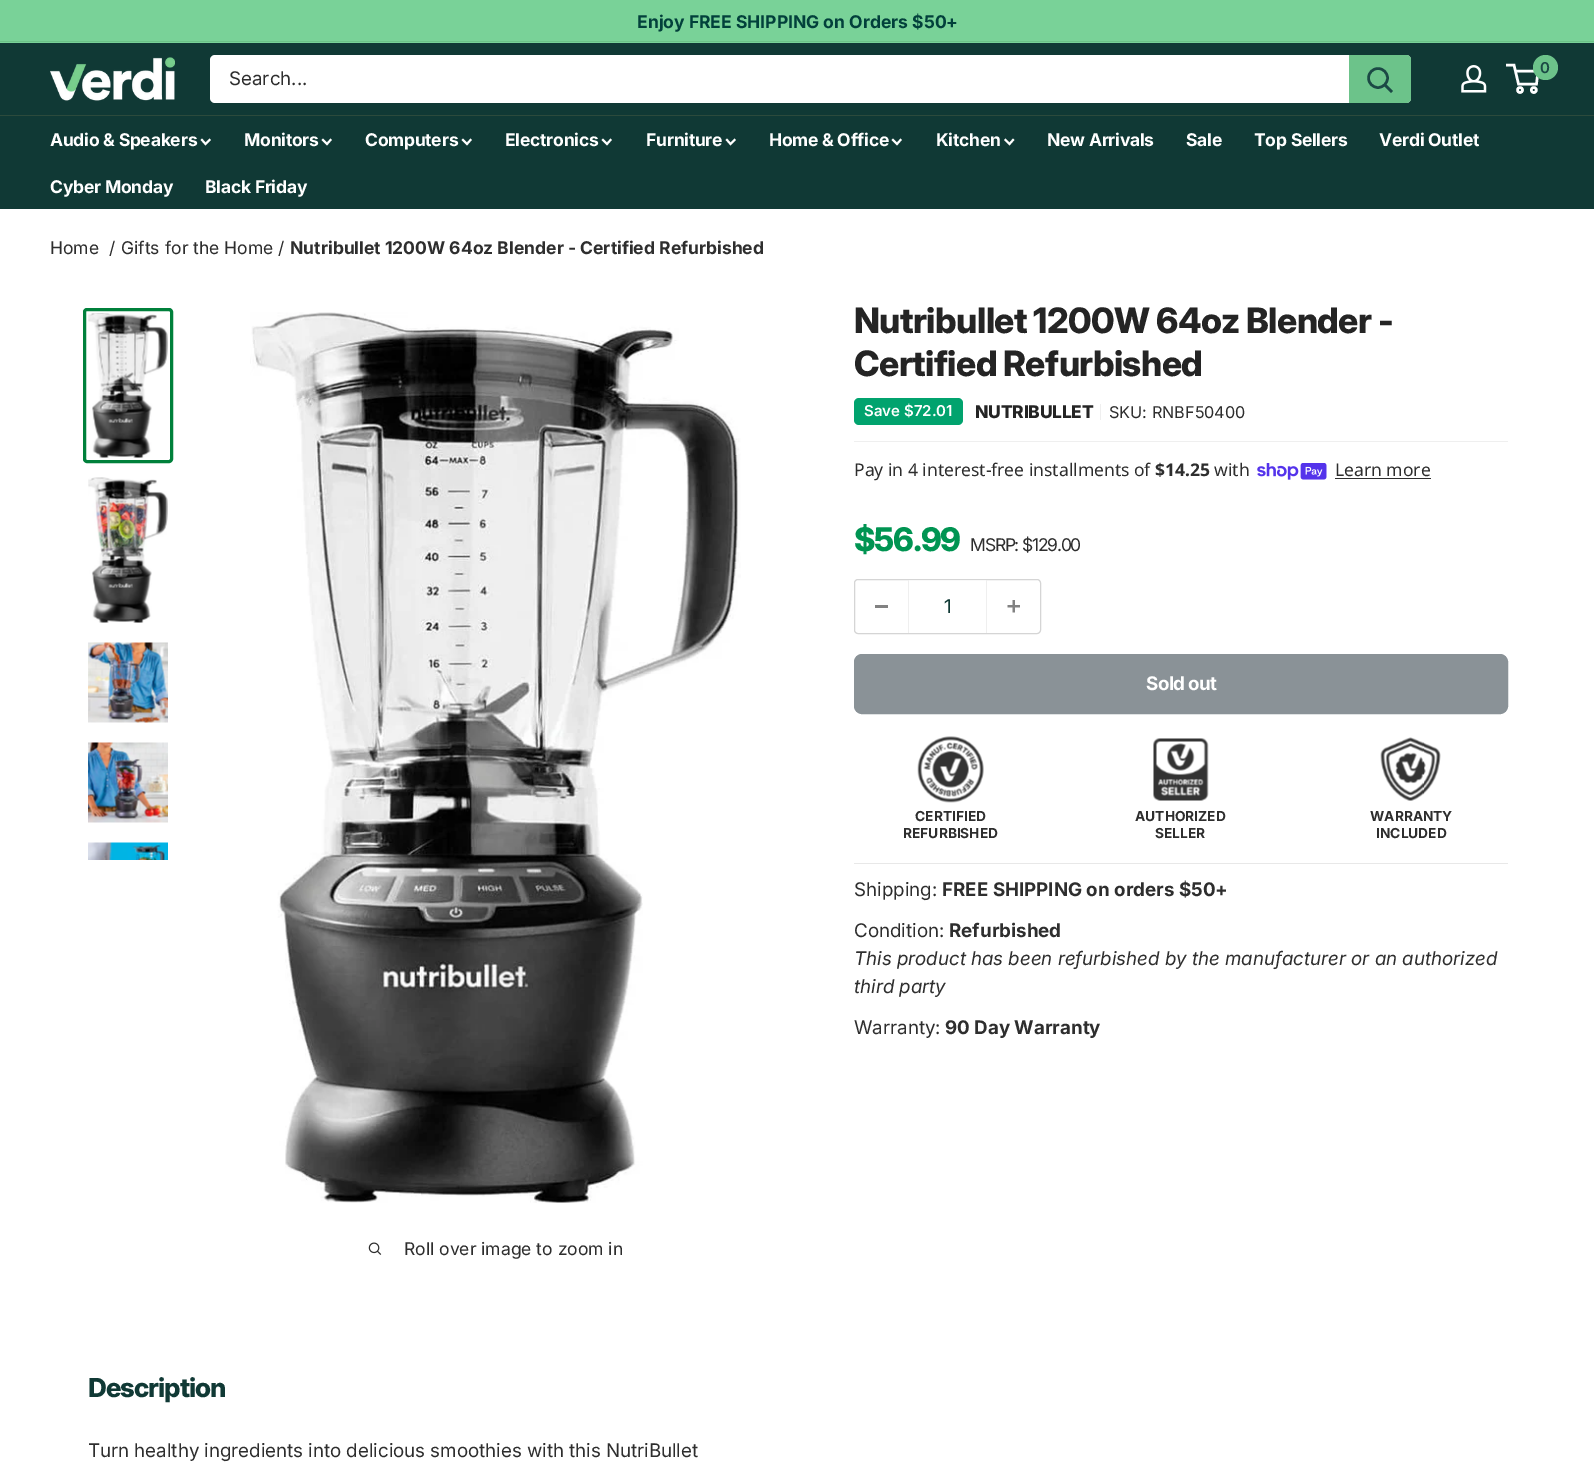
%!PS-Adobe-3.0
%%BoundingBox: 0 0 1594 1471
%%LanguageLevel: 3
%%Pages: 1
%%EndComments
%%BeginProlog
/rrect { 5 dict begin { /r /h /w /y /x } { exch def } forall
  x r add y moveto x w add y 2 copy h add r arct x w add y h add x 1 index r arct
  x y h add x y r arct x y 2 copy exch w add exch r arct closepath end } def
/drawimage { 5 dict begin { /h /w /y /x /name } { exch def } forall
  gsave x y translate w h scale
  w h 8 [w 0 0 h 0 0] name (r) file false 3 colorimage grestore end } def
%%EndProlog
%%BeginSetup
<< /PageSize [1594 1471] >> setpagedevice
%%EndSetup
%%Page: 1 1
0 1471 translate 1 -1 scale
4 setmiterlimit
1 setgray
0 0 1594 1471 rectfill
0.475 0.824 0.596 setrgbcolor
0 0 1594 43 rectfill
0.42 0.757 0.529 setrgbcolor
0 41 1594 1 rectfill
0.063 0.224 0.208 setrgbcolor
0 43 1594 72 rectfill
(images/1.raw) 50 57 125 44 drawimage
(images/2.raw) 1461 65 26 28 drawimage
1 setgray
2.5 setlinewidth
newpath 1520 90 2.5 0 360 arc closepath stroke
newpath 1533.8 90 2.5 0 360 arc closepath stroke
newpath 1515.5 71 moveto 1538 71 lineto 1536.5 84 lineto 1518.5 84 lineto 1514 65 lineto 1506 65 lineto stroke
0.424 0.765 0.541 setrgbcolor
newpath 1545.5 67.5 12.5 0 360 arc closepath fill
1 setgray
210 55 1201 48 5 rrect fill
0.424 0.765 0.541 setrgbcolor
newpath 1349 55 moveto 1406 55 lineto 1409 55 1411 57 1411 60 curveto 1411 98 lineto 1411 101 1409 103 1406 103 curveto 1349 103 lineto closepath fill
0.106 0.286 0.271 setrgbcolor
2 setlinecap
newpath 1391 91 moveto 1385 85 lineto stroke
0 setlinecap
newpath 1378 78 9.5 0 360 arc closepath stroke
0.063 0.224 0.208 setrgbcolor
0 116 1594 93 rectfill
0.173 0.29 0.235 setrgbcolor
0 115 1594 1 rectfill
1 setgray
1.9 setlinewidth
2 setlinecap
newpath 209.5 140 moveto 205.5 144 lineto 202 140 lineto stroke
newpath 330.5 140 moveto 327 144 lineto 323 140 lineto stroke
newpath 470.5 140 moveto 467 144 lineto 463 140 lineto stroke
newpath 610.5 140 moveto 607 144 lineto 603 140 lineto stroke
newpath 734.5 140 moveto 730.5 144 lineto 727 140 lineto stroke
newpath 900.5 140 moveto 897 144 lineto 893 140 lineto stroke
newpath 1013 140 moveto 1009.5 144 lineto 1005.5 140 lineto stroke
0.004 0.639 0.431 setrgbcolor
854 398 109 27 5 rrect fill
0.937 setgray
1100 404 1 16 rectfill
854 441 654 1 rectfill
(images/3.raw) 1257 463 70 17 drawimage
0.18 setgray
1335 478 96 1 rectfill
0.835 setgray
1 setlinewidth
0 setlinecap
854.5 579.5 186 54 3.5 rrect stroke
0.51 setgray
875 605 13 3 rectfill
0.976 setgray
909 580 77 1 rectfill
0.937 setgray
986 580 1 53 rectfill
908 580 1 53 rectfill
(images/4.raw) 1007 600 13 13 drawimage
0.541 0.573 0.592 setrgbcolor
854.5 654.5 653 59 7.5 rrect gsave fill grestore
stroke
0.91 setgray
854 863 654 1 rectfill
(images/5.raw) 917 736 67 67 drawimage
(images/6.raw) 1153 738 56 63 drawimage
(images/7.raw) 1380 737 61 64 drawimage
0 0.502 0.231 setrgbcolor
3 setlinewidth
84.5 309.5 87 152 2.5 rrect stroke
(images/8.raw) 88 313 80 145 drawimage
(images/9.raw) 88 477 80 146 drawimage
(images/10.raw) 88 642 80 81 drawimage
(images/11.raw) 88 742 80 81 drawimage
(images/12.raw) 88 842 80 18 drawimage
(images/13.raw) 250 312 491 891 drawimage
(images/14.raw) 368 1242 14 13 drawimage
/Inter-Bold [17.5 0 0 -17.5 0 0] selectfont
0.008 0.251 0.231 setrgbcolor
637 28 moveto (Enjoy FREE SHIPPING on Orders $50+) show
/Inter-SemiBold [15 0 0 -15 0 0] selectfont
0.106 0.286 0.271 setrgbcolor
1540 73 moveto (0) show
/Inter-Regular [18.75 0 0 -18.75 0 0] selectfont
0.18 setgray
229 85 moveto (Search...) show
/Inter-Bold [17.5 0 0 -17.5 0 0] selectfont
1 setgray
50 146 moveto -0.25 0 (Audio & Speakers) ashow
244 146 moveto -0.25 0 (Monitors) ashow
365 146 moveto -0.25 0 (Computers) ashow
505 146 moveto -0.25 0 (Electronics) ashow
646 146 moveto -0.25 0 (Furniture) ashow
769 146 moveto -0.25 0 (Home & Office) ashow
936 146 moveto -0.25 0 (Kitchen) ashow
1047 146 moveto -0.25 0 (New Arrivals) ashow
1186 146 moveto -0.25 0 (Sale) ashow
1254 146 moveto -0.25 0 (Top Sellers) ashow
1379 146 moveto -0.25 0 (Verdi Outlet) ashow
50 193 moveto -0.25 0 (Cyber Monday) ashow
205 193 moveto -0.25 0 (Black Friday) ashow
/Inter-Regular [17.5 0 0 -17.5 0 0] selectfont
0.18 setgray
50 254 moveto (Home) show
109 254 moveto (/) show
121 254 moveto (Gifts for the Home) show
278 254 moveto (/) show
/Inter-Bold [17.5 0 0 -17.5 0 0] selectfont
290 254 moveto (Nutribullet 1200W 64oz Blender - Certified Refurbished) show
/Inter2-ExtraBold [35 0 0 -35 0 0] selectfont
0.141 setgray
854 333 moveto -0.6 0 (Nutribullet 1200W 64oz Blender -) ashow
854 376 moveto -0.6 0 (Certified Refurbished) ashow
/Inter-SemiBold [15 0 0 -15 0 0] selectfont
1 setgray
864 416 moveto (Save $72.01) show
/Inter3-ExtraBold [17.5 0 0 -17.5 0 0] selectfont
0.141 setgray
975 418 moveto -0.25 0 (NUTRIBULLET) ashow
/Inter-Regular [16.25 0 0 -16.25 0 0] selectfont
0.18 setgray
1109 418 moveto (SKU: RNBF50400) show
/NotoSans-Regular [17.5 0 0 -17.5 0 0] selectfont
854 476 moveto (Pay in 4 interest-free installments of) show
/NotoSans-Bold [17.5 0 0 -17.5 0 0] selectfont
1155 476 moveto ($14.25) show
/NotoSans-Regular [17.5 0 0 -17.5 0 0] selectfont
1214 476 moveto (with) show
1335 476 moveto (Learn more) show
/Inter-ExtraBold [32.5 0 0 -32.5 0 0] selectfont
0 0.58 0.322 setrgbcolor
854 551 moveto -1.25 0 ($56.99) ashow
/Inter-Regular [17.5 0 0 -17.5 0 0] selectfont
0.18 setgray
970 551 moveto -1.25 0 (MSRP: $129.00) ashow
/Inter-Regular [18.75 0 0 -18.75 0 0] selectfont
0.063 0.224 0.208 setrgbcolor
944 613 moveto (1) show
/Inter-Bold [18.75 0 0 -18.75 0 0] selectfont
1 setgray
1146 690 moveto -0.6 0 (Sold out) ashow
/Inter-Bold [13.75 0 0 -13.75 0 0] selectfont
0.18 setgray
915 821 moveto (CERTIFIED) show
903 838 moveto (REFURBISHED) show
1135 821 moveto (AUTHORIZED) show
1155 838 moveto (SELLER) show
1370 821 moveto (WARRANTY) show
1376 838 moveto (INCLUDED) show
/Inter-Regular [18.75 0 0 -18.75 0 0] selectfont
854 896 moveto (Shipping:) show
/Inter-Bold [18.75 0 0 -18.75 0 0] selectfont
942 896 moveto (FREE SHIPPING on orders $50+) show
/Inter-Regular [18.75 0 0 -18.75 0 0] selectfont
854 937 moveto (Condition:) show
/Inter-Bold [18.75 0 0 -18.75 0 0] selectfont
949 937 moveto (Refurbished) show
/Inter-Italic [18.75 0 0 -18.75 0 0] selectfont
854 965 moveto (This product has been refurbished by the manufacturer or an authorized) show
854 993 moveto (third party) show
/Inter-Regular [18.75 0 0 -18.75 0 0] selectfont
854 1034 moveto (Warranty:) show
/Inter-Bold [18.75 0 0 -18.75 0 0] selectfont
945 1034 moveto (90 Day Warranty) show
/Inter-Regular [17.5 0 0 -17.5 0 0] selectfont
404 1255 moveto (Roll over image to zoom in) show
/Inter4-ExtraBold [26.25 0 0 -26.25 0 0] selectfont
0.063 0.224 0.208 setrgbcolor
88 1397 moveto -1 0 (Description) ashow
/Inter-Regular [18.75 0 0 -18.75 0 0] selectfont
0.18 setgray
88 1457 moveto -0.25 0 32 (Turn healthy ingredients into delicious smoothies with this NutriBullet) widthshow
showpage
%%EOF
